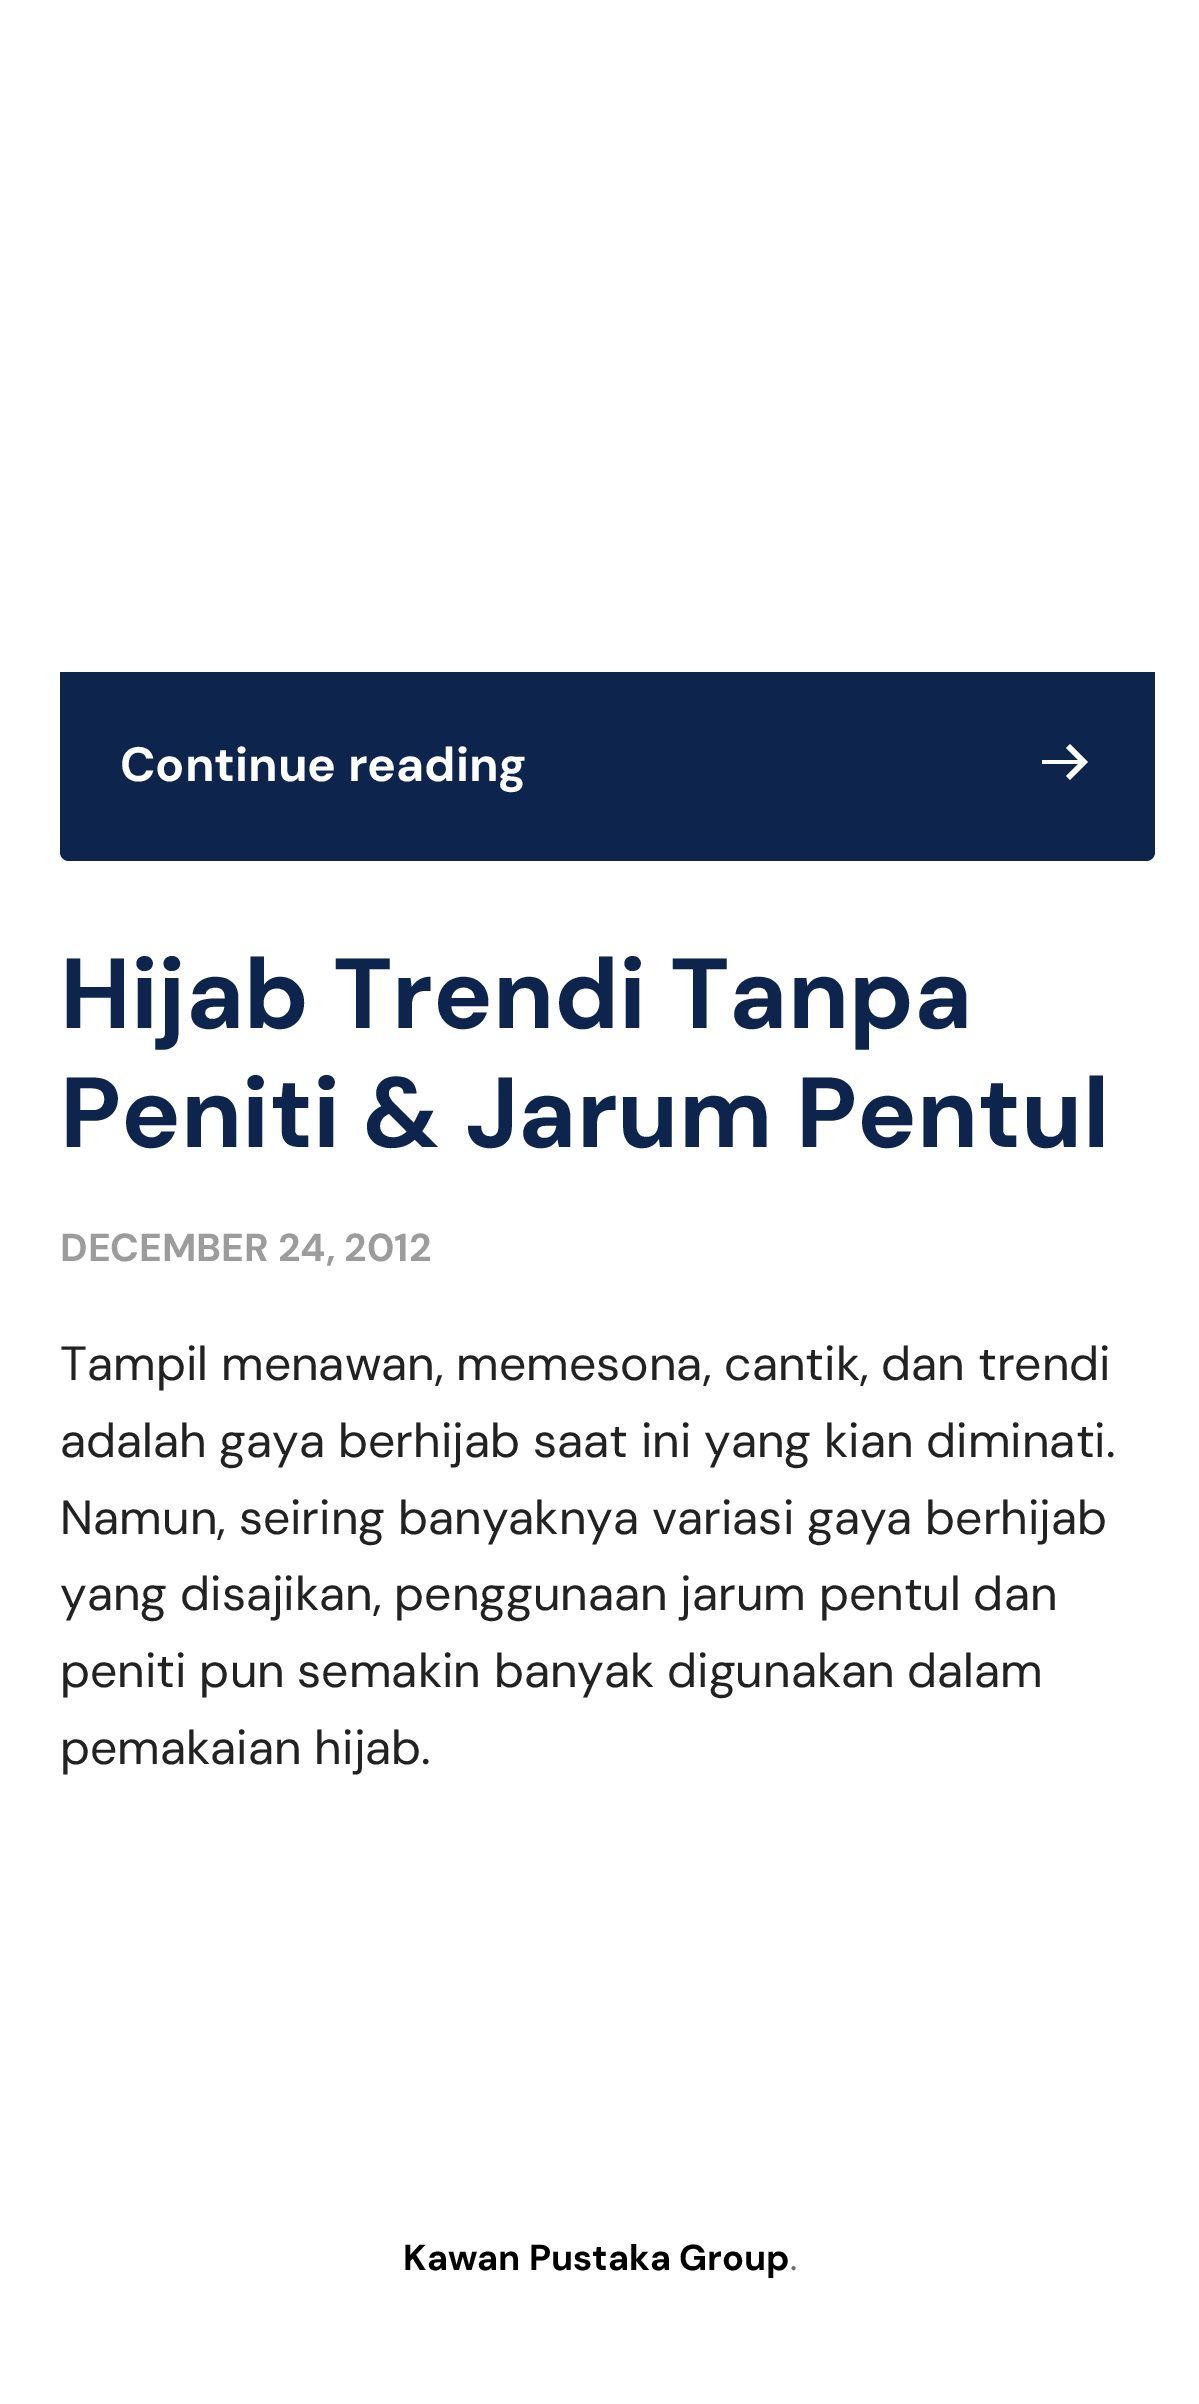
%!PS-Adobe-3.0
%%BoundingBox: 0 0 1199 2404
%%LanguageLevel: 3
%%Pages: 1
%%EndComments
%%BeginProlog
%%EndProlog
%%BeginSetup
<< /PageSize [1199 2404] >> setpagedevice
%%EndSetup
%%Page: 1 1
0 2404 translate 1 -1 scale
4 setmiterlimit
1 setgray
0 0 1199 2404 rectfill
0.051 0.141 0.298 setrgbcolor
newpath 60 672 moveto 1155 672 lineto 1155 852 lineto 1155 857 1151 861 1146 861 curveto 69 861 lineto 64 861 60 857 60 852 curveto closepath fill
1 setgray
newpath 1070 744 moveto 1066 748 lineto 1078 760 lineto 1042 760 lineto 1042 764 lineto 1078 764 lineto 1066 776 lineto 1070 780 lineto 1088 762 lineto closepath fill
/DMSans-Bold [48 0 0 -48 0 0] selectfont
120 781 moveto (Continue reading) show
/DMSans-Bold [99.5 0 0 -99.5 0 0] selectfont
0.051 0.141 0.298 setrgbcolor
60 1028 moveto (Hijab Trendi Tanpa) show
60 1147 moveto (Peniti & Jarum Pentul) show
/DMSans-Bold [39 0 0 -39 0 0] selectfont
0.612 setgray
60 1261 moveto (DECEMBER 24, 2012) show
/DMSans-Regular [48 0 0 -48 0 0] selectfont
0.133 setgray
60 1380 moveto (Tampil menawan, memesona, cantik, dan trendi) show
60 1457 moveto (adalah gaya berhijab saat ini yang kian diminati.) show
60 1534 moveto (Namun, seiring banyaknya variasi gaya berhijab) show
60 1610 moveto (yang disajikan, penggunaan jarum pentul dan) show
60 1687 moveto (peniti pun semakin banyak digunakan dalam) show
60 1764 moveto (pemakaian hijab.) show
/DMSans-Bold [36 0 0 -36 0 0] selectfont
0 setgray
403 2270 moveto (Kawan Pustaka Group) show
/DMSans-Regular [36 0 0 -36 0 0] selectfont
0.408 setgray
790 2270 moveto (.) show
showpage
%%EOF
